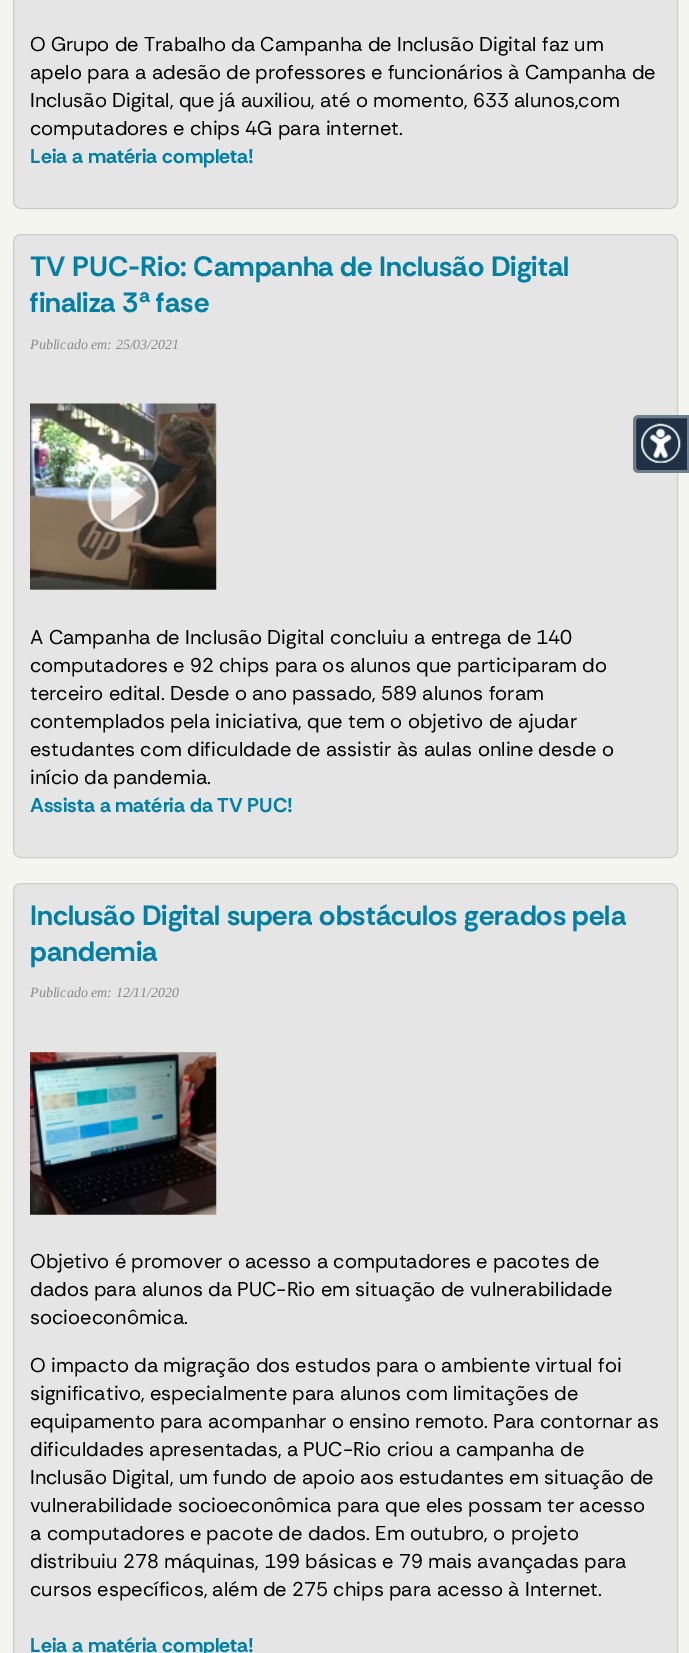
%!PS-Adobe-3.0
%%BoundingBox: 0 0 689 1653
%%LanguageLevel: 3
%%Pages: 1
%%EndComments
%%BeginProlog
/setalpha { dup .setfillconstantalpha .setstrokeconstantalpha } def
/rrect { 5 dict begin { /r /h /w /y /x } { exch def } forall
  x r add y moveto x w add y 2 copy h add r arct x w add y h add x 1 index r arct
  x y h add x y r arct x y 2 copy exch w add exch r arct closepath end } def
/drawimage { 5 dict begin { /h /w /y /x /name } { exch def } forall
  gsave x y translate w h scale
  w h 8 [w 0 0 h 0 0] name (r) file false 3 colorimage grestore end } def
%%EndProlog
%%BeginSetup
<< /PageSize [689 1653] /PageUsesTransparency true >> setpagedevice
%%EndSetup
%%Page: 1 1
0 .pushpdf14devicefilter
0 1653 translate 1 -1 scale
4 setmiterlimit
0.961 0.961 0.941 setrgbcolor
0 0 689 1653 rectfill
0.898 setgray
13.5 -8.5 664 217 7.5 rrect gsave fill grestore
0.8 setgray
stroke
0.898 setgray
13.5 234.5 664 623 7.5 rrect gsave fill grestore
0.8 setgray
stroke
(images/1.raw) 30 403 187 187 drawimage
0.898 setgray
13.5 883.5 664 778 7.5 rrect gsave fill grestore
0.8 setgray
stroke
(images/2.raw) 30 1052 187 163 drawimage
0.118 0.192 0.271 setrgbcolor
newpath 639 415 moveto 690 415 lineto 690 473 lineto 639 473 lineto 635.5 473 633 470.5 633 467 curveto 633 421 lineto 633 417.5 635.5 415 639 415 curveto closepath fill
0.37 setalpha
1 setgray
3 setlinewidth
newpath 639 416.5 moveto 688.5 416.5 lineto 688.5 471.5 lineto 639 471.5 lineto 636.5 471.5 634.5 469.5 634.5 467 curveto 634.5 421 lineto 634.5 418.5 636.5 416.5 639 416.5 curveto closepath stroke
1 setalpha
(images/3.raw) 641 423 40 40 drawimage
/RethinkSans-Regular [20 0 0 -20 0 0] selectfont
0 setgray
30 51 moveto (O Grupo de Trabalho da Campanha de Inclusão Digital faz um) show
30 79 moveto (apelo para a adesão de professores e funcionários à Campanha de) show
30 107 moveto (Inclusão Digital, que já auxiliou, até o momento, 633 alunos,com) show
30 135 moveto (computadores e chips 4G para internet.) show
/RethinkSans-Bold [20 0 0 -20 0 0] selectfont
0 0.498 0.643 setrgbcolor
30 163 moveto (Leia a matéria completa!) show
/RethinkSans-Bold [28 0 0 -28 0 0] selectfont
30 276 moveto (TV PUC-Rio: Campanha de Inclusão Digital) show
30 312 moveto (finaliza 3ª fase) show
/LiberationSerif-Italic [14 0 0 -14 0 0] selectfont
0.533 setgray
30 349 moveto (Publicado em: 25/03/2021) show
/RethinkSans-Regular [20 0 0 -20 0 0] selectfont
0 setgray
30 644 moveto (A Campanha de Inclusão Digital concluiu a entrega de 140) show
30 672 moveto (computadores e 92 chips para os alunos que participaram do) show
30 700 moveto (terceiro edital. Desde o ano passado, 589 alunos foram) show
30 728 moveto (contemplados pela iniciativa, que tem o objetivo de ajudar) show
30 756 moveto (estudantes com dificuldade de assistir às aulas online desde o) show
30 784 moveto (início da pandemia.) show
/RethinkSans-Bold [20 0 0 -20 0 0] selectfont
0 0.498 0.643 setrgbcolor
30 812 moveto (Assista a matéria da TV PUC!) show
/RethinkSans-Bold [28 0 0 -28 0 0] selectfont
30 925 moveto (Inclusão Digital supera obstáculos gerados pela) show
30 961 moveto (pandemia) show
/LiberationSerif-Italic [14 0 0 -14 0 0] selectfont
0.533 setgray
30 997 moveto (Publicado em: 12/11/2020) show
/RethinkSans-Regular [20 0 0 -20 0 0] selectfont
0 setgray
30 1268 moveto (Objetivo é promover o acesso a computadores e pacotes de) show
30 1296 moveto (dados para alunos da PUC-Rio em situação de vulnerabilidade) show
30 1324 moveto (socioeconômica.) show
30 1372 moveto (O impacto da migração dos estudos para o ambiente virtual foi) show
30 1400 moveto (significativo, especialmente para alunos com limitações de) show
30 1428 moveto (equipamento para acompanhar o ensino remoto. Para contornar as) show
30 1456 moveto (dificuldades apresentadas, a PUC-Rio criou a campanha de) show
30 1484 moveto (Inclusão Digital, um fundo de apoio aos estudantes em situação de) show
30 1512 moveto (vulnerabilidade socioeconômica para que eles possam ter acesso) show
30 1540 moveto (a computadores e pacote de dados. Em outubro, o projeto) show
30 1568 moveto (distribuiu 278 máquinas, 199 básicas e 79 mais avançadas para) show
30 1596 moveto (cursos específicos, além de 275 chips para acesso à Internet.) show
/RethinkSans-Bold [20 0 0 -20 0 0] selectfont
0 0.498 0.643 setrgbcolor
30 1652 moveto (Leia a matéria completa!) show
.poppdf14devicefilter showpage
%%EOF
